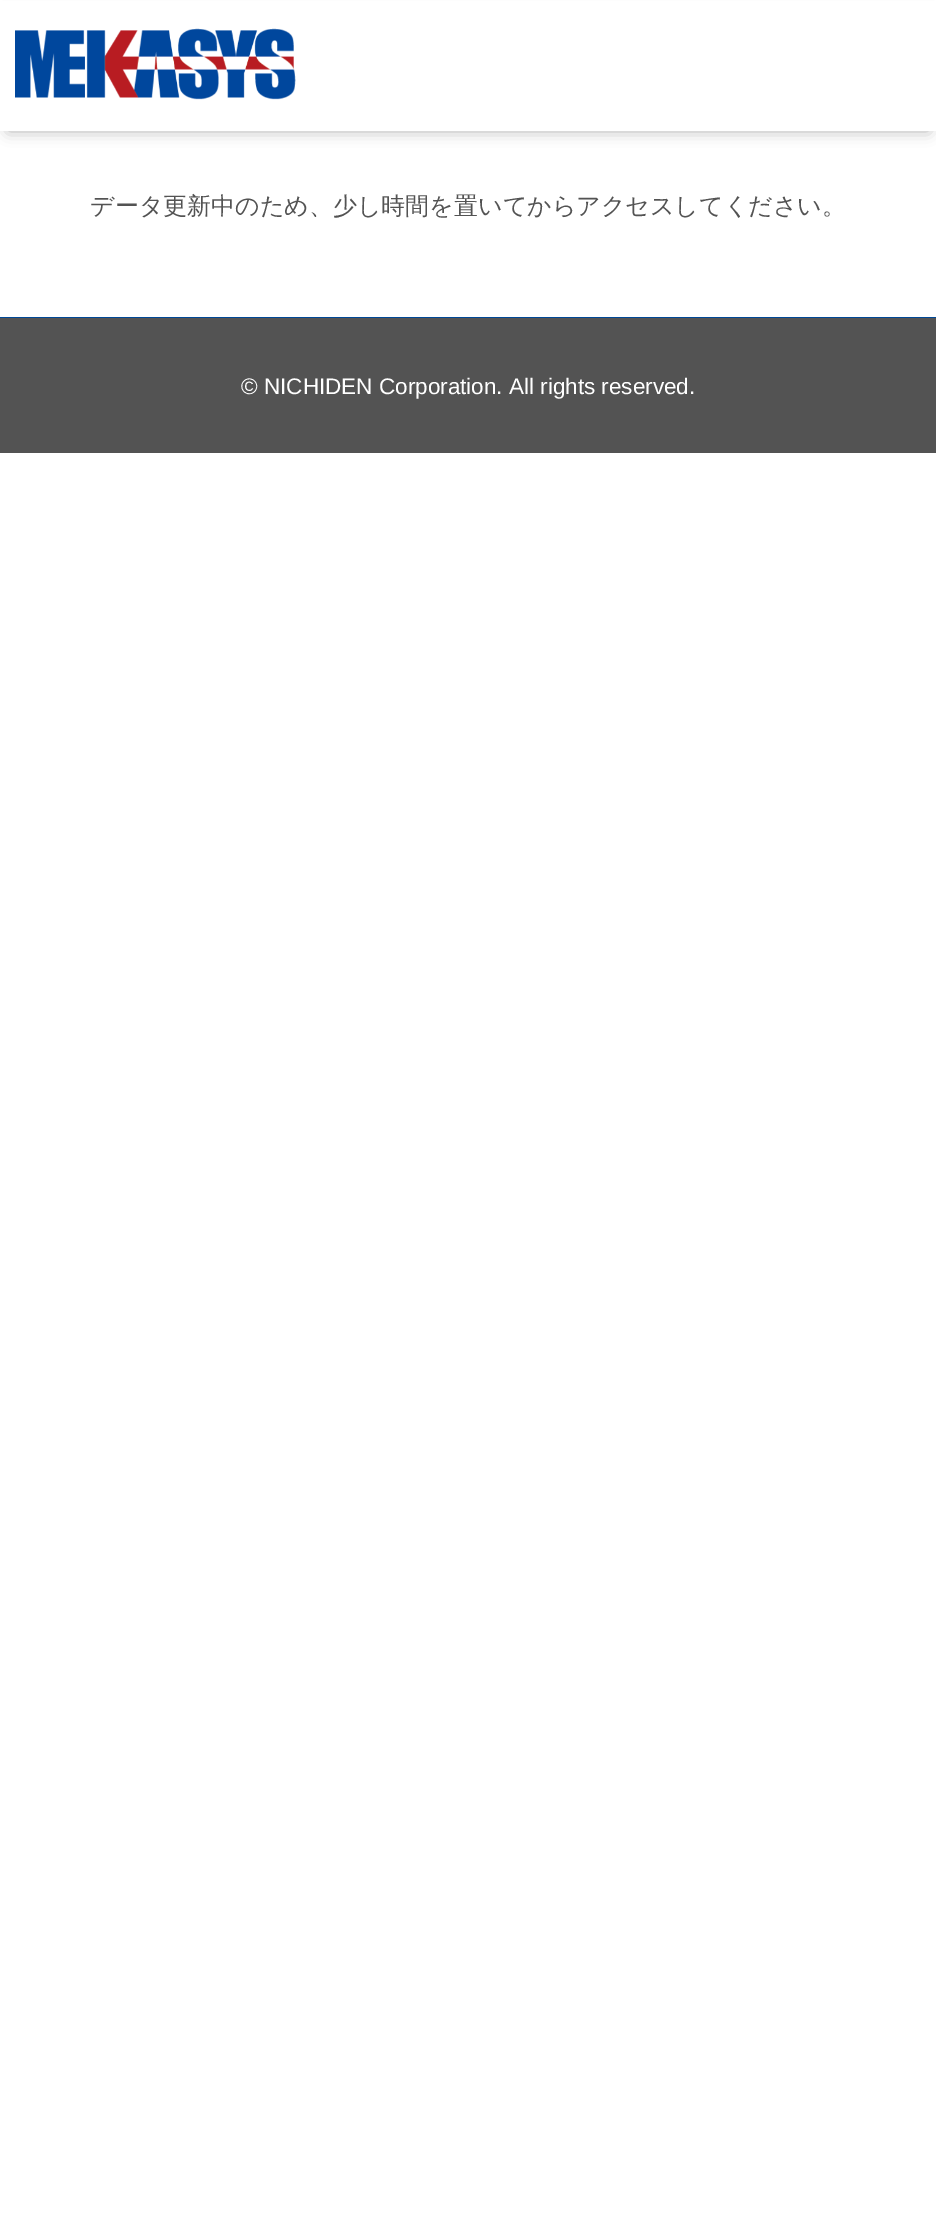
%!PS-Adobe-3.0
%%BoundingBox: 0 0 936 2236
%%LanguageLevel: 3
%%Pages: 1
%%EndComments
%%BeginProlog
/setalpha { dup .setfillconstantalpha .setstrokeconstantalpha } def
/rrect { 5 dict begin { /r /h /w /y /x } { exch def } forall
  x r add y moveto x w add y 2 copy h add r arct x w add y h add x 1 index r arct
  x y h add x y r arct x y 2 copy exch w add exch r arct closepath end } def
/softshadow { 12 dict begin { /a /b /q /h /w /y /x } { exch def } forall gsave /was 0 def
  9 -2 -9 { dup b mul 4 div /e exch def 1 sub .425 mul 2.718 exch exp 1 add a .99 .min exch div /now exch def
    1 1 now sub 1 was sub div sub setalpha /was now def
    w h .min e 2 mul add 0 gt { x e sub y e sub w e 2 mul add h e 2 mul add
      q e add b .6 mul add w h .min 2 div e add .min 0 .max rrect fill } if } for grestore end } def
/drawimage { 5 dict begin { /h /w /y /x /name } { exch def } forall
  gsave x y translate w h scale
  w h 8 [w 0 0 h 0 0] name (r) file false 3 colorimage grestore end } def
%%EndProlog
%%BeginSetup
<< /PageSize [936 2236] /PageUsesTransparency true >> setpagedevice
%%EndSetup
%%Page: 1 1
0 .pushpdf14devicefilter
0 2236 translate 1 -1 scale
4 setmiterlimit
1 setgray
0 0 936 2236 rectfill
0 setgray
8 15 921 116 0 7.5 0.3 softshadow
1 setgray
0 1 936 130 rectfill
(images/1.raw) 15 28 281 72 drawimage
0 0.282 0.588 setrgbcolor
0 317 936 1 rectfill
0.325 setgray
0 318 936 135 rectfill
/WenQuanYiZenHei-Medium [24 0 0 -24 0 0] selectfont
90 214 moveto (データ更新中のため、少し時間を置いてからアクセスしてください。) show
/LiberationSans-Regular [22.5 0 0 -22.5 0 0] selectfont
1 setgray
241 394 moveto (© NICHIDEN Corporation. All rights reserved.) show
.poppdf14devicefilter showpage
%%EOF
